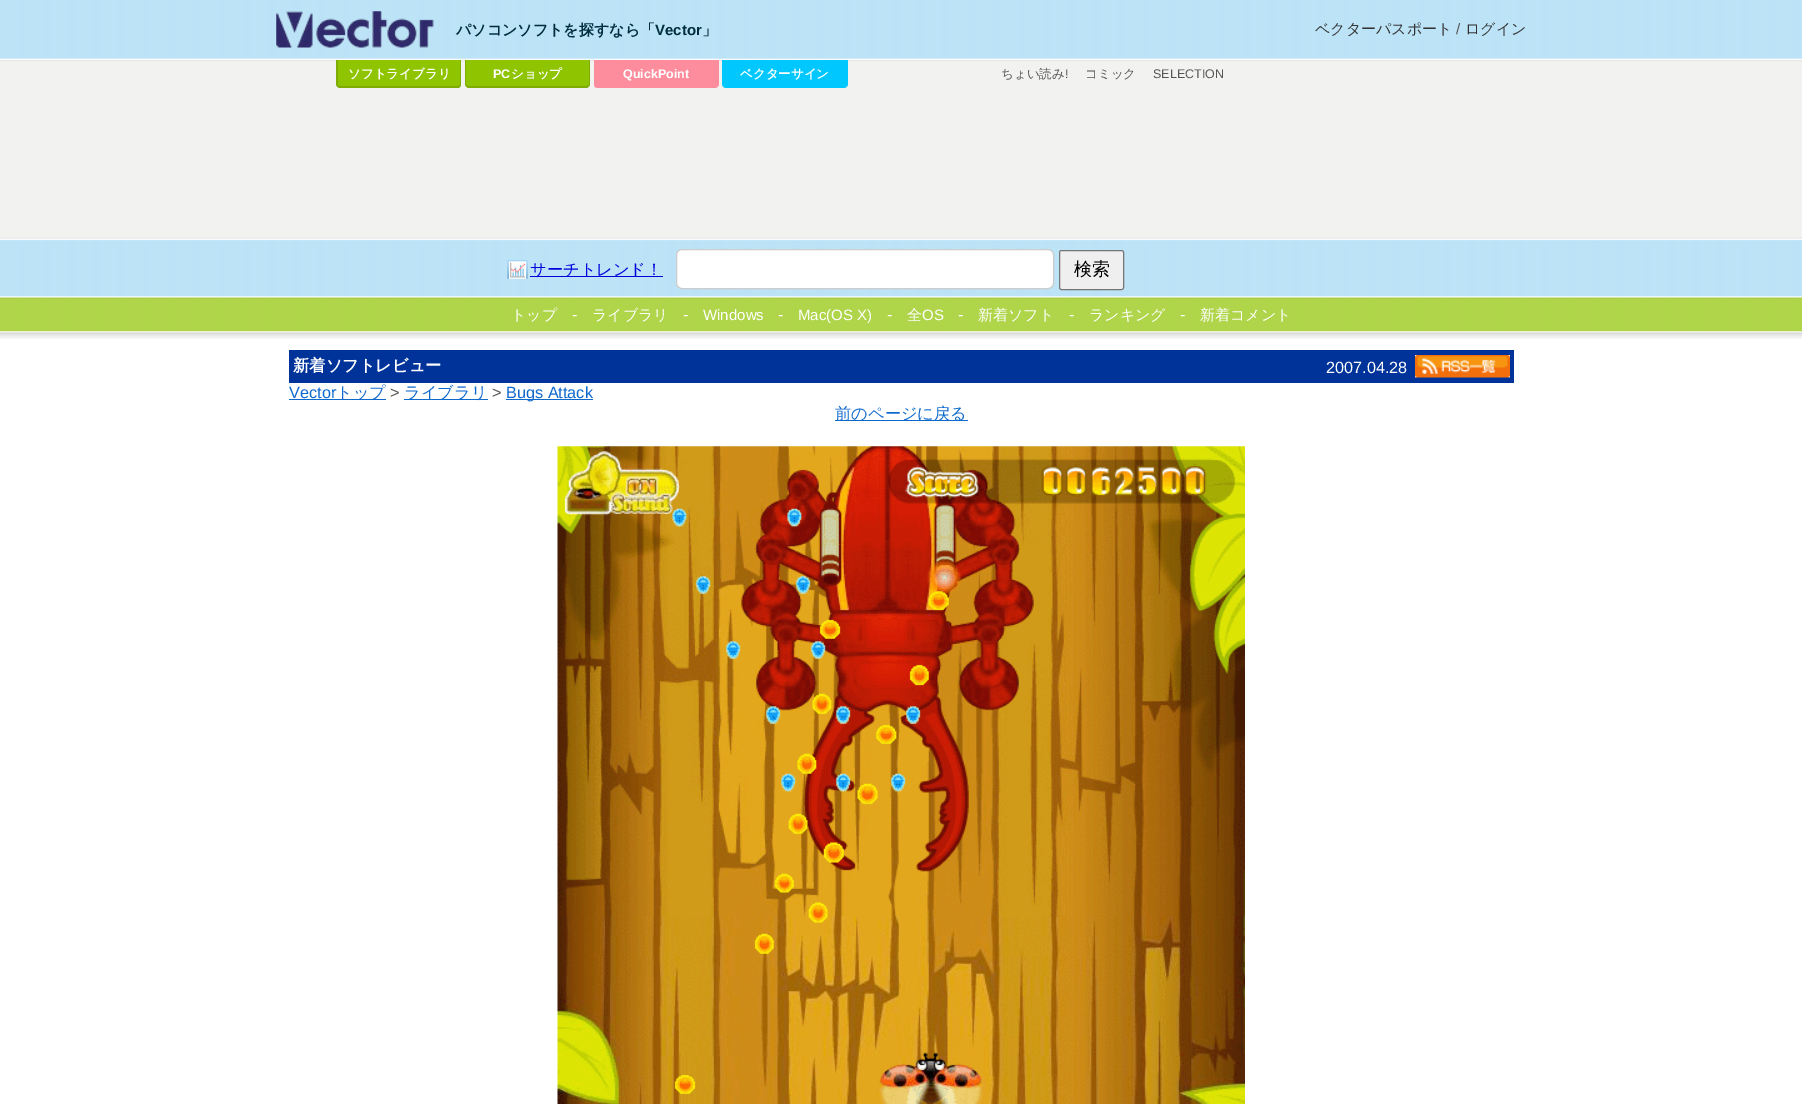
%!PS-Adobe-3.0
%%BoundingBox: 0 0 1802 1104
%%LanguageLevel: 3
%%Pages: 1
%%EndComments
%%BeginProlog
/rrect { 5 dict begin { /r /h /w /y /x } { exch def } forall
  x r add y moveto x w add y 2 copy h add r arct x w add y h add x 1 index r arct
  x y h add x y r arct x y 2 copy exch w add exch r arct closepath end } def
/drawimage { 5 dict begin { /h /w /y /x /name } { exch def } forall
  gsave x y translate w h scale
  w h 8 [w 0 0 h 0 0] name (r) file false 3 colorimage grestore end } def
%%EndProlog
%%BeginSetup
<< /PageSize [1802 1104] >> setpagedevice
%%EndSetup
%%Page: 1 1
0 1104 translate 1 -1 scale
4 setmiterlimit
1 setgray
0 0 1802 1104 rectfill
(images/1.raw) 0 0 1802 339 drawimage
(images/2.raw) 276 11 158 37 drawimage
0.561 0.769 0 setrgbcolor
newpath 338 60 moveto 460 60 lineto 460 83.5 lineto 460 85 459 86 457.5 86 curveto 340.5 86 lineto 339 86 338 85 338 83.5 curveto closepath fill
0.494 0.675 0 setrgbcolor
newpath 336 60 moveto 461 60 lineto 461 84 lineto 461 86 460 88 458 88 curveto 340 88 lineto 338 88 336 86 336 84 curveto closepath 338 60 moveto 460 60 lineto 460 84 lineto 460 85 459 86 458 86 curveto 340 86 lineto 339 86 338 85 338 84 curveto closepath eofill
0.561 0.769 0 setrgbcolor
newpath 466 60 moveto 589 60 lineto 589 83.5 lineto 589 85 588 86 586.5 86 curveto 468.5 86 lineto 467 86 466 85 466 83.5 curveto closepath fill
0.494 0.675 0 setrgbcolor
newpath 465 60 moveto 590 60 lineto 590 84 lineto 590 86 588 88 586 88 curveto 469 88 lineto 467 88 465 86 465 84 curveto closepath 466 60 moveto 589 60 lineto 589 84 lineto 589 85 588 86 586 86 curveto 469 86 lineto 467 86 466 85 466 84 curveto closepath eofill
0.992 0.549 0.616 setrgbcolor
newpath 595 60 moveto 718 60 lineto 718 83.5 lineto 718 85 717 86 715.5 86 curveto 597.5 86 lineto 596 86 595 85 595 83.5 curveto closepath fill
newpath 594 60 moveto 719 60 lineto 719 84 lineto 719 86 717 88 715 88 curveto 598 88 lineto 595 88 594 86 594 84 curveto closepath 595 60 moveto 718 60 lineto 718 84 lineto 718 85 716 86 715 86 curveto 598 86 lineto 596 86 595 85 595 84 curveto closepath eofill
0 0.784 1 setrgbcolor
newpath 724 60 moveto 846 60 lineto 846 83.5 lineto 846 85 845 86 843.5 86 curveto 726.5 86 lineto 725 86 724 85 724 83.5 curveto closepath fill
newpath 722 60 moveto 848 60 lineto 848 84 lineto 848 86 846 88 844 88 curveto 726 88 lineto 724 88 722 86 722 84 curveto closepath 724 60 moveto 846 60 lineto 846 84 lineto 846 85 845 86 844 86 curveto 726 86 lineto 725 86 724 85 724 84 curveto closepath eofill
(images/3.raw) 507 260 21 19 drawimage
0 0 0.867 setrgbcolor
530 276 133 1 rectfill
1 setgray
676.5 249.5 377 39 5.5 rrect gsave fill grestore
0.8 setgray
stroke
0.937 setgray
1059.5 250.5 64 39 2 rrect gsave fill grestore
0.463 setgray
stroke
0 0.2 0.6 setrgbcolor
289 350 1225 33 rectfill
(images/4.raw) 1415 355 95 23 drawimage
0.055 0.412 0.804 setrgbcolor
289 399 97 1 rectfill
404 399 84 1 rectfill
506 399 87 1 rectfill
835 420 133 1 rectfill
(images/5.raw) 557 446 688 658 drawimage
/WenQuanYiZenHei-Bold [15 0 0 -15 0 0] selectfont
0 0.18 0.239 setrgbcolor
456 35 moveto (パソコンソフトを探すなら「) show
/LiberationSans-Bold [15 0 0 -15 0 0] selectfont
655 35 moveto (Vector) show
/WenQuanYiZenHei-Bold [15 0 0 -15 0 0] selectfont
702 35 moveto (」) show
/WenQuanYiZenHei-Bold [12.5 0 0 -12.5 0 0] selectfont
1 setgray
348 78 moveto (ソフトライブラリ) show
/LiberationSans-Bold [12.5 0 0 -12.5 0 0] selectfont
493 78 moveto (PC) show
/WenQuanYiZenHei-Bold [12.5 0 0 -12.5 0 0] selectfont
511 78 moveto (ショップ) show
/LiberationSans-Bold [12.5 0 0 -12.5 0 0] selectfont
623 78 moveto (QuickPoint) show
/WenQuanYiZenHei-Bold [12.5 0 0 -12.5 0 0] selectfont
740 78 moveto (ベクターサイン) show
/WenQuanYiZenHei-Medium [15 0 0 -15 0 0] selectfont
0.2 setgray
1315 34 moveto (ベクターパスポート) show
/LiberationSans-Regular [15 0 0 -15 0 0] selectfont
0.333 setgray
1456 34 moveto (/) show
/WenQuanYiZenHei-Medium [15 0 0 -15 0 0] selectfont
0.2 setgray
1465 34 moveto (ログイン) show
/WenQuanYiZenHei-Medium [16.25 0 0 -16.25 0 0] selectfont
0 0 0.867 setrgbcolor
530 275 moveto (サーチトレンド！) show
/WenQuanYiZenHei-Medium [18 0 0 -18 0 0] selectfont
0 setgray
1074 275 moveto (検索) show
/WenQuanYiZenHei-Medium [12.5 0 0 -12.5 0 0] selectfont
0.333 setgray
1001 78 moveto (ちょい読み) show
/LiberationSans-Regular [12.5 0 0 -12.5 0 0] selectfont
1065 78 moveto (!) show
/WenQuanYiZenHei-Medium [12.5 0 0 -12.5 0 0] selectfont
1085 78 moveto (コミック) show
/LiberationSans-Regular [12.5 0 0 -12.5 0 0] selectfont
1153 78 moveto (SELECTION) show
/WenQuanYiZenHei-Medium [15 0 0 -15 0 0] selectfont
1 setgray
511 320 moveto (トップ) show
/LiberationSans-Regular [16.25 0 0 -16.25 0 0] selectfont
572 320 moveto (-) show
/WenQuanYiZenHei-Medium [15 0 0 -15 0 0] selectfont
592 320 moveto (ライブラリ) show
/LiberationSans-Regular [16.25 0 0 -16.25 0 0] selectfont
683 320 moveto (-) show
/LiberationSans-Regular [15 0 0 -15 0 0] selectfont
703 320 moveto (Windows) show
/LiberationSans-Regular [16.25 0 0 -16.25 0 0] selectfont
778 320 moveto (-) show
/LiberationSans-Regular [15 0 0 -15 0 0] selectfont
798 320 moveto (Mac\(OS X\)) show
/LiberationSans-Regular [16.25 0 0 -16.25 0 0] selectfont
887 320 moveto (-) show
/WenQuanYiZenHei-Medium [15 0 0 -15 0 0] selectfont
907 320 moveto (全) show
/LiberationSans-Regular [15 0 0 -15 0 0] selectfont
922 320 moveto (OS) show
/LiberationSans-Regular [16.25 0 0 -16.25 0 0] selectfont
958 320 moveto (-) show
/WenQuanYiZenHei-Medium [15 0 0 -15 0 0] selectfont
978 320 moveto (新着ソフト) show
/LiberationSans-Regular [16.25 0 0 -16.25 0 0] selectfont
1069 320 moveto (-) show
/WenQuanYiZenHei-Medium [15 0 0 -15 0 0] selectfont
1089 320 moveto (ランキング) show
/LiberationSans-Regular [16.25 0 0 -16.25 0 0] selectfont
1180 320 moveto (-) show
/WenQuanYiZenHei-Medium [15 0 0 -15 0 0] selectfont
1200 320 moveto (新着コメント) show
/WenQuanYiZenHei-Bold [16.25 0 0 -16.25 0 0] selectfont
293 371 moveto (新着ソフトレビュー) show
/LiberationSans-Regular [16.25 0 0 -16.25 0 0] selectfont
1326 373 moveto (2007.04.28) show
0.055 0.412 0.804 setrgbcolor
289 398 moveto (Vector) show
/WenQuanYiZenHei-Medium [16.25 0 0 -16.25 0 0] selectfont
336 398 moveto (トップ) show
/LiberationSans-Regular [16.25 0 0 -16.25 0 0] selectfont
0.333 setgray
390 398 moveto (>) show
/WenQuanYiZenHei-Medium [16.25 0 0 -16.25 0 0] selectfont
0.055 0.412 0.804 setrgbcolor
404 398 moveto (ライブラリ) show
/LiberationSans-Regular [16.25 0 0 -16.25 0 0] selectfont
0.333 setgray
492 398 moveto (>) show
0.055 0.412 0.804 setrgbcolor
506 398 moveto (Bugs Attack) show
/WenQuanYiZenHei-Medium [16.25 0 0 -16.25 0 0] selectfont
835 419 moveto (前のページに戻る) show
showpage
%%EOF
